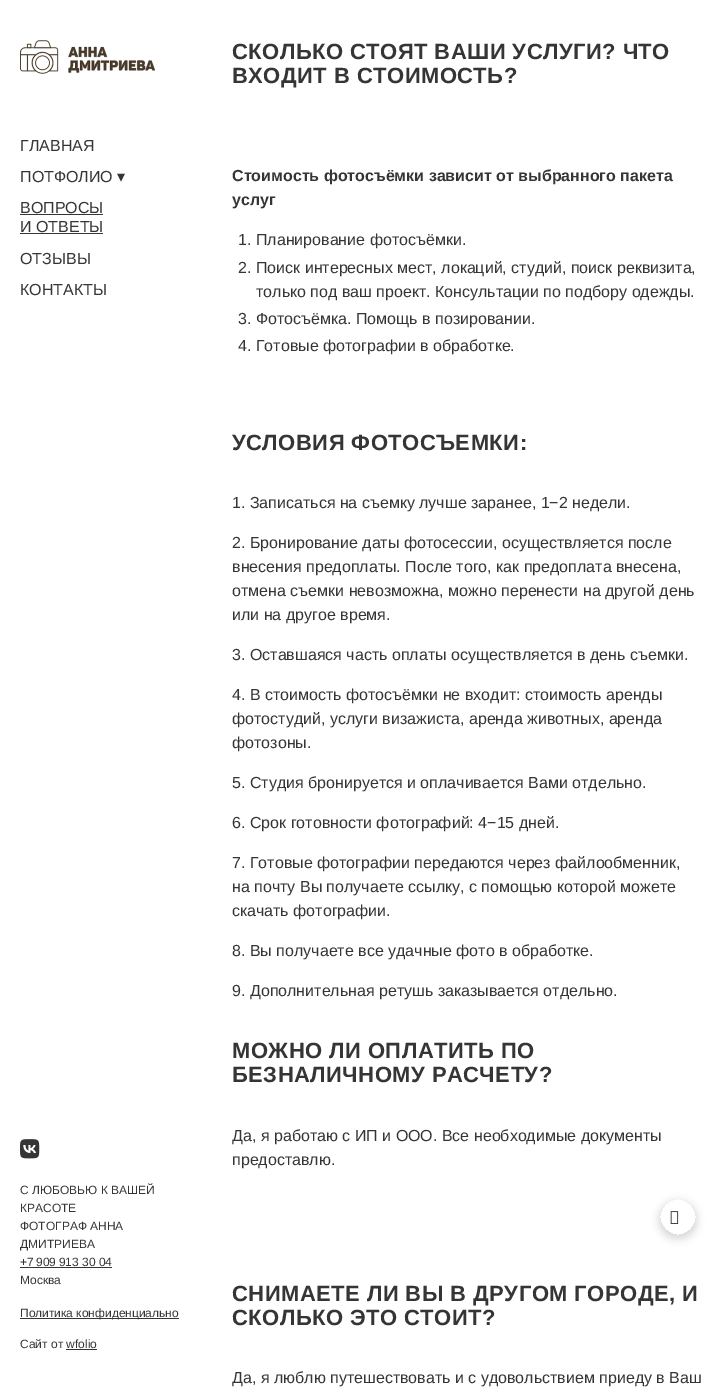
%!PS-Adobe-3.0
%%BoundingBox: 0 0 716 1391
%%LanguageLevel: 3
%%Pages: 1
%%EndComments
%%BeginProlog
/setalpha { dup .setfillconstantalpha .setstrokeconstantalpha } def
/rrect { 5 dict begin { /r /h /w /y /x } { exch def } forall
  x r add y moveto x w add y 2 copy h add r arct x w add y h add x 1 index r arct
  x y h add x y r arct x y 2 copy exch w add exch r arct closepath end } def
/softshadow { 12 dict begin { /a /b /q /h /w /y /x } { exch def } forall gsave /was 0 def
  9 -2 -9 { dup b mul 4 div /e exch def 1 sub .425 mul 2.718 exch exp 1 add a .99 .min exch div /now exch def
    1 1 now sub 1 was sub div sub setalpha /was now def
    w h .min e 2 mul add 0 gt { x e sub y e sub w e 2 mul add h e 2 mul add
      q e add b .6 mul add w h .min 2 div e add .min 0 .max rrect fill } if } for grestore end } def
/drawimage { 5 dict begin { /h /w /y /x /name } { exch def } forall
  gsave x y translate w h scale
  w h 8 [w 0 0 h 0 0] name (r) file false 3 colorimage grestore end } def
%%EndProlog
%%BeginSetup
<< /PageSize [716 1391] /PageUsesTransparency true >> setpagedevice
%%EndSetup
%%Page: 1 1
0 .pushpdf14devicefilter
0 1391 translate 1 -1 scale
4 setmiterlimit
1 setgray
0 0 716 1391 rectfill
(images/1.raw) 20 40 135 34 drawimage
0.208 setgray
20 214 83 1 rectfill
20 233 83 1 rectfill
(images/2.raw) 20 1139 20 20 drawimage
20 1267 92 1 rectfill
20 1318 159 1 rectfill
66 1349 31 1 rectfill
gsave
newpath 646 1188 moveto 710 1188 lineto 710 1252 lineto 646 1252 lineto closepath 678 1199 moveto 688 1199 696 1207 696 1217 curveto 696 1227 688 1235 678 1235 curveto 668 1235 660 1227 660 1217 curveto 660 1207 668 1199 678 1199 curveto closepath eoclip newpath
0 setgray
659 1201 38 38 19 4 0.15 softshadow
grestore
(images/3.raw) 670 1211 9 13 drawimage
/LiberationSans-Regular [16 0 0 -16 0 0] selectfont
20 151 moveto (ГЛАВНАЯ) show
20 182 moveto (ПОТФОЛИО) show
/DejaVuSans-Regular [16 0 0 -16 0 0] selectfont
117 182 moveto (▾) show
/LiberationSans-Regular [16 0 0 -16 0 0] selectfont
20 213 moveto (ВОПРОСЫ) show
20 232 moveto (И ОТВЕТЫ) show
20 264 moveto (ОТЗЫВЫ) show
20 295 moveto (КОНТАКТЫ) show
/LiberationSans-Regular [12 0 0 -12 0 0] selectfont
20 1194 moveto (С ЛЮБОВЬЮ К ВАШЕЙ) show
20 1212 moveto (КРАСОТЕ) show
20 1230 moveto (ФОТОГРАФ АННА) show
20 1248 moveto (ДМИТРИЕВА) show
20 1266 moveto (+7 909 913 30 04) show
20 1284 moveto (Москва) show
20 1317 moveto (Политика конфиденциально) show
20 1348 moveto (Сайт от wfolio) show
/LiberationSans-Bold [22 0 0 -22 0 0] selectfont
232 59 moveto 0.45 0 (СКОЛЬКО СТОЯТ ВАШИ УСЛУГИ? ЧТО) ashow
232 83 moveto 0.45 0 (ВХОДИТ В СТОИМОСТЬ?) ashow
/LiberationSans-Bold [16 0 0 -16 0 0] selectfont
232 181 moveto (Стоимость фотосъёмки зависит от выбранного пакета) show
232 205 moveto (услуг) show
/LiberationSans-Regular [16 0 0 -16 0 0] selectfont
238 245 moveto (1. Планирование фотосъёмки.) show
238 273 moveto (2. Поиск интересных мест, локаций, студий, поиск реквизита,) show
256 297 moveto (только под ваш проект. Консультации по подбору одежды.) show
238 324 moveto (3. Фотосъёмка. Помощь в позировании.) show
238 351 moveto (4. Готовые фотографии в обработке.) show
/LiberationSans-Bold [22 0 0 -22 0 0] selectfont
232 450 moveto 0.45 0 (УСЛОВИЯ ФОТОСЪЕМКИ:) ashow
/LiberationSans-Regular [16 0 0 -16 0 0] selectfont
232 508 moveto (1. Записаться на съемку лучше заранее, 1−2 недели.) show
232 548 moveto (2. Бронирование даты фотосессии, осуществляется после) show
232 572 moveto (внесения предоплаты. После того, как предоплата внесена,) show
232 596 moveto (отмена съемки невозможна, можно перенести на другой день) show
232 620 moveto (или на другое время.) show
232 660 moveto (3. Оставшаяся часть оплаты осуществляется в день съемки.) show
232 700 moveto (4. В стоимость фотосъёмки не входит: стоимость аренды) show
232 724 moveto (фотостудий, услуги визажиста, аренда животных, аренда) show
232 748 moveto (фотозоны.) show
232 788 moveto (5. Студия бронируется и оплачивается Вами отдельно.) show
232 828 moveto (6. Срок готовности фотографий: 4−15 дней.) show
232 868 moveto (7. Готовые фотографии передаются через файлообменник,) show
232 892 moveto (на почту Вы получаете ссылку, с помощью которой можете) show
232 916 moveto (скачать фотографии.) show
232 956 moveto (8. Вы получаете все удачные фото в обработке.) show
232 996 moveto (9. Дополнительная ретушь заказывается отдельно.) show
/LiberationSans-Bold [22 0 0 -22 0 0] selectfont
232 1058 moveto 0.45 0 (МОЖНО ЛИ ОПЛАТИТЬ ПО) ashow
232 1082 moveto 0.45 0 (БЕЗНАЛИЧНОМУ РАСЧЕТУ?) ashow
/LiberationSans-Regular [16 0 0 -16 0 0] selectfont
232 1141 moveto (Да, я работаю с ИП и ООО. Все необходимые документы) show
232 1165 moveto (предоставлю.) show
/LiberationSans-Bold [22 0 0 -22 0 0] selectfont
232 1301 moveto 0.45 0 (СНИМАЕТЕ ЛИ ВЫ В ДРУГОМ ГОРОДЕ, И) ashow
232 1325 moveto 0.45 0 (СКОЛЬКО ЭТО СТОИТ?) ashow
/LiberationSans-Regular [16 0 0 -16 0 0] selectfont
232 1383 moveto (Да, я люблю путешествовать и с удовольствием приеду в Ваш) show
.poppdf14devicefilter showpage
%%EOF
